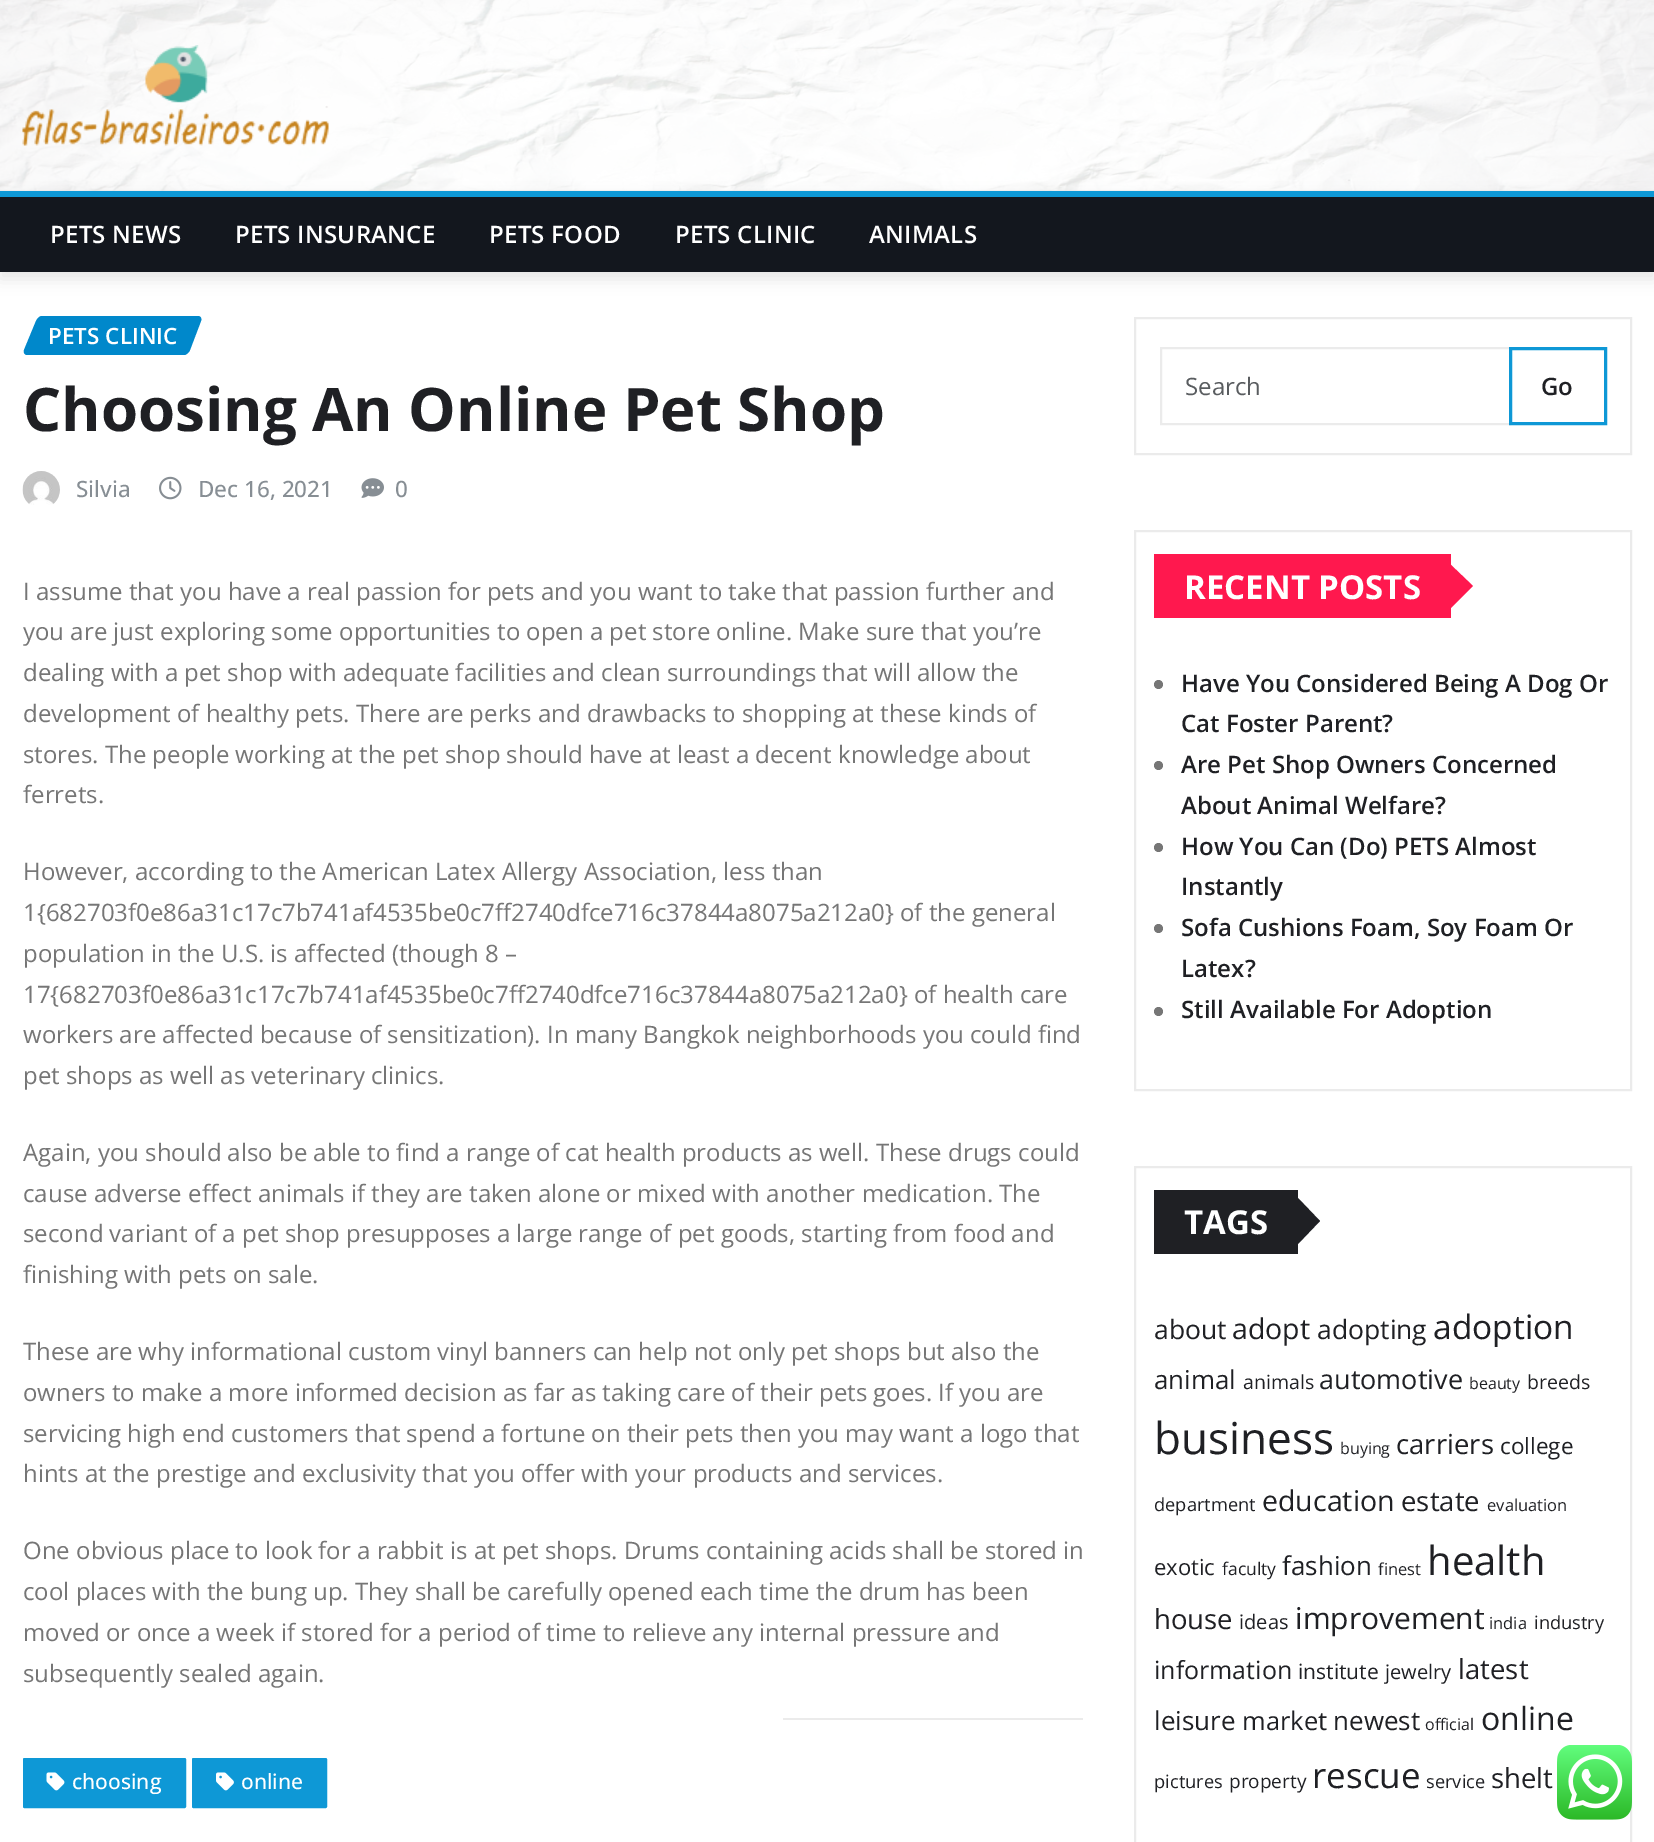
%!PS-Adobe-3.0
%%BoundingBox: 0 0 1654 1842
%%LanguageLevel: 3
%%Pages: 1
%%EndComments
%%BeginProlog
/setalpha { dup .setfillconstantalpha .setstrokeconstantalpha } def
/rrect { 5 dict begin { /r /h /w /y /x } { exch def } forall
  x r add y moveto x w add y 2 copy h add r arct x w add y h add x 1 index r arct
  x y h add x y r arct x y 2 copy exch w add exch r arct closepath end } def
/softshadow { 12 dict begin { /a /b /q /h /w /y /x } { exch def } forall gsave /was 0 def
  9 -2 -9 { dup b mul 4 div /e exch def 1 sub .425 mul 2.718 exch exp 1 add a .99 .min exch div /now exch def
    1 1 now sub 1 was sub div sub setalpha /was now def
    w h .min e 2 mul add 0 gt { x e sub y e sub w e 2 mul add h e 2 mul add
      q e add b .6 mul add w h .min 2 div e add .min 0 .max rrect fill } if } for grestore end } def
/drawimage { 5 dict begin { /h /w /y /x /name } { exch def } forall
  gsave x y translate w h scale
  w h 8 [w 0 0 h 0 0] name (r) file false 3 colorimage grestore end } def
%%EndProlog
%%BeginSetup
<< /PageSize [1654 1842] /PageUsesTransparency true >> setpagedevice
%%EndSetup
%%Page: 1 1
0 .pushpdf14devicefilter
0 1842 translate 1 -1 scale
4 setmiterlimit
1 setgray
0 0 1654 1842 rectfill
0.91 0.914 0.918 setrgbcolor
0 190 1654 1 rectfill
(images/1.raw) 0 0 1654 191 drawimage
(images/2.raw) 22 45 307 101 drawimage
0 setgray
0 198 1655 81 0 7.5 0.1 softshadow
0.075 0.09 0.118 setrgbcolor
0 197 1654 75 rectfill
0.055 0.596 0.839 setrgbcolor
0 191 1654 6 rectfill
0 0.533 0.796 setrgbcolor
newpath 42 316 moveto 198 316 lineto 201 316 202 319 201 321 curveto 190 350 lineto 189 353 186 355 184 355 curveto 27 355 lineto 25 355 23 353 24 350 curveto 36 321 lineto 37 319 39 316 42 316 curveto closepath fill
(images/3.raw) 22 471 38 34 drawimage
(images/4.raw) 159 476 23 24 drawimage
(images/5.raw) 361 478 23 20 drawimage
0.922 setgray
783 1718 300 2 rectfill
0.055 0.596 0.839 setrgbcolor
24 1759 161 48 0.5 rrect gsave fill grestore
2 setlinewidth
stroke
(images/6.raw) 46 1772 19 19 drawimage
193 1759 133 48 0.5 rrect gsave fill grestore
stroke
(images/7.raw) 216 1772 18 19 drawimage
0.922 setgray
1135 318 496 136 rectstroke
1161 348 349 76 rectstroke
0.055 0.596 0.839 setrgbcolor
3 setlinewidth
1510.5 348.5 95 75 rectstroke
0.922 setgray
2 setlinewidth
1135 531 496 559 rectstroke
1 0.094 0.306 setrgbcolor
1154 554 297 64 rectfill
newpath 1450 609 moveto 1450 564 lineto 1473 586 lineto closepath fill
0.463 setgray
newpath 1158.5 684.5 4.5 0 360 arc closepath fill
newpath 1158.5 765.5 4.5 0 360 arc closepath fill
newpath 1158.5 847.5 4.5 0 360 arc closepath fill
newpath 1158.5 928.5 4.5 0 360 arc closepath fill
newpath 1158.5 1011.5 4.5 0 360 arc closepath fill
0.922 setgray
1135 1167 496 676 rectstroke
0.122 0.125 0.141 setrgbcolor
1154 1190 144 64 rectfill
newpath 1298 1244 moveto 1298 1198 lineto 1320 1221 lineto closepath fill
(images/8.raw) 1557 1745 75 75 drawimage
/OpenSans-SemiBold [24 0 0 -24 0 0] selectfont
1 setgray
50 243 moveto 0.25 0 (PETS NEWS) ashow
235 243 moveto 0.25 0 (PETS INSURANCE) ashow
489 243 moveto 0.25 0 (PETS FOOD) ashow
675 243 moveto 0.25 0 (PETS CLINIC) ashow
869 243 moveto 0.25 0 (ANIMALS) ashow
/OpenSans-SemiBold [22.5 0 0 -22.5 0 0] selectfont
48 344 moveto (PETS CLINIC) show
/OpenSans-Bold [60 0 0 -60 0 0] selectfont
0.122 0.125 0.141 setrgbcolor
23 431 moveto (Choosing An Online Pet Shop) show
/OpenSans-Medium [22.5 0 0 -22.5 0 0] selectfont
0.529 0.557 0.58 setrgbcolor
76 497 moveto (Silvia) show
198 497 moveto (Dec 16, 2021) show
395 497 moveto (0) show
/OpenSans-Regular [24 0 0 -24 0 0] selectfont
0.463 setgray
23 600 moveto (I assume that you have a real passion for pets and you want to take that passion further and) show
23 640 moveto (you are just exploring some opportunities to open a pet store online. Make sure that you’re) show
23 681 moveto (dealing with a pet shop with adequate facilities and clean surroundings that will allow the) show
23 722 moveto (development of healthy pets. There are perks and drawbacks to shopping at these kinds of) show
23 763 moveto (stores. The people working at the pet shop should have at least a decent knowledge about) show
23 803 moveto (ferrets.) show
23 880 moveto (However, according to the American Latex Allergy Association, less than) show
23 921 moveto (1{682703f0e86a31c17c7b741af4535be0c7ff2740dfce716c37844a8075a212a0} of the general) show
23 962 moveto (population in the U.S. is affected \(though 8 –) show
23 1003 moveto (17{682703f0e86a31c17c7b741af4535be0c7ff2740dfce716c37844a8075a212a0} of health care) show
23 1043 moveto (workers are affected because of sensitization\). In many Bangkok neighborhoods you could find) show
23 1084 moveto (pet shops as well as veterinary clinics.) show
23 1161 moveto (Again, you should also be able to find a range of cat health products as well. These drugs could) show
23 1202 moveto (cause adverse effect animals if they are taken alone or mixed with another medication. The) show
23 1242 moveto (second variant of a pet shop presupposes a large range of pet goods, starting from food and) show
23 1283 moveto (finishing with pets on sale.) show
23 1360 moveto (These are why informational custom vinyl banners can help not only pet shops but also the) show
23 1401 moveto (owners to make a more informed decision as far as taking care of their pets goes. If you are) show
23 1442 moveto (servicing high end customers that spend a fortune on their pets then you may want a logo that) show
23 1482 moveto (hints at the prestige and exclusivity that you offer with your products and services.) show
23 1559 moveto (One obvious place to look for a rabbit is at pet shops. Drums containing acids shall be stored in) show
23 1600 moveto (cool places with the bung up. They shall be carefully opened each time the drum has been) show
23 1641 moveto (moved or once a week if stored for a period of time to relieve any internal pressure and) show
23 1682 moveto (subsequently sealed again.) show
/OpenSans-Medium [21 0 0 -21 0 0] selectfont
1 setgray
72 1789 moveto (choosing) show
241 1789 moveto (online) show
/OpenSans-Regular [24 0 0 -24 0 0] selectfont
0.349 0.361 0.373 setrgbcolor
1185 395 moveto (Search) show
/OpenSans-SemiBold [24 0 0 -24 0 0] selectfont
0.122 0.125 0.141 setrgbcolor
1541 395 moveto (Go) show
/OpenSans-Bold [33 0 0 -33 0 0] selectfont
1 setgray
1184 599 moveto (RECENT POSTS) show
/OpenSans-SemiBold [24 0 0 -24 0 0] selectfont
0.122 0.125 0.141 setrgbcolor
1181 692 moveto (Have You Considered Being A Dog Or) show
1181 732 moveto (Cat Foster Parent?) show
1181 773 moveto (Are Pet Shop Owners Concerned) show
1181 814 moveto (About Animal Welfare?) show
1181 855 moveto (How You Can \(Do\) PETS Almost) show
1181 895 moveto (Instantly) show
1181 936 moveto (Sofa Cushions Foam, Soy Foam Or) show
1181 977 moveto (Latex?) show
1181 1018 moveto (Still Available For Adoption) show
/OpenSans-Bold [33 0 0 -33 0 0] selectfont
1 setgray
1184 1234 moveto (TAGS) show
/OpenSans-Regular [26.5 0 0 -26.5 0 0] selectfont
0.122 0.125 0.141 setrgbcolor
1154 1339 moveto (about) show
/OpenSans-Regular [28.5 0 0 -28.5 0 0] selectfont
1232 1339 moveto (adopt) show
/OpenSans-Regular [26.5 0 0 -26.5 0 0] selectfont
1317 1339 moveto (adopting) show
/OpenSans-Regular [33.5 0 0 -33.5 0 0] selectfont
1433 1339 moveto (adoption) show
/OpenSans-Regular [26 0 0 -26 0 0] selectfont
1154 1389 moveto (animal) show
/OpenSans-Regular [19.5 0 0 -19.5 0 0] selectfont
1243 1389 moveto (animals) show
/OpenSans-Regular [27 0 0 -27 0 0] selectfont
1319 1389 moveto (automotive) show
/OpenSans-Regular [16 0 0 -16 0 0] selectfont
1469 1389 moveto (beauty) show
/OpenSans-Regular [19.5 0 0 -19.5 0 0] selectfont
1527 1389 moveto (breeds) show
/OpenSans-Regular [44 0 0 -44 0 0] selectfont
1154 1454 moveto (business) show
/OpenSans-Regular [16 0 0 -16 0 0] selectfont
1340 1454 moveto (buying) show
/OpenSans-Regular [27.5 0 0 -27.5 0 0] selectfont
1396 1454 moveto (carriers) show
/OpenSans-Regular [22.5 0 0 -22.5 0 0] selectfont
1500 1454 moveto (college) show
/OpenSans-Regular [18.25 0 0 -18.25 0 0] selectfont
1154 1511 moveto (department) show
/OpenSans-Regular [28.5 0 0 -28.5 0 0] selectfont
1262 1511 moveto (education) show
/OpenSans-Regular [27.5 0 0 -27.5 0 0] selectfont
1401 1511 moveto (estate) show
/OpenSans-Regular [16.5 0 0 -16.5 0 0] selectfont
1487 1511 moveto (evaluation) show
/OpenSans-Regular [22 0 0 -22 0 0] selectfont
1154 1575 moveto (exotic) show
/OpenSans-Regular [17.5 0 0 -17.5 0 0] selectfont
1222 1575 moveto (faculty) show
/OpenSans-Regular [26 0 0 -26 0 0] selectfont
1282 1575 moveto (fashion) show
/OpenSans-Regular [16.5 0 0 -16.5 0 0] selectfont
1378 1575 moveto (finest) show
/OpenSans-Regular [40 0 0 -40 0 0] selectfont
1427 1575 moveto (health) show
/OpenSans-Regular [27.5 0 0 -27.5 0 0] selectfont
1154 1629 moveto (house) show
/OpenSans-Regular [20 0 0 -20 0 0] selectfont
1239 1629 moveto (ideas) show
/OpenSans-Regular [30 0 0 -30 0 0] selectfont
1295 1629 moveto (improvement) show
/OpenSans-Regular [16.5 0 0 -16.5 0 0] selectfont
1489 1629 moveto (india) show
/OpenSans-Regular [18.25 0 0 -18.25 0 0] selectfont
1534 1629 moveto (industry) show
/OpenSans-Regular [25 0 0 -25 0 0] selectfont
1154 1679 moveto (information) show
/OpenSans-Regular [21 0 0 -21 0 0] selectfont
1298 1679 moveto (institute) show
/OpenSans-Regular [20 0 0 -20 0 0] selectfont
1385 1679 moveto (jewelry) show
/OpenSans-Regular [27.5 0 0 -27.5 0 0] selectfont
1458 1679 moveto (latest) show
/OpenSans-Regular [26 0 0 -26 0 0] selectfont
1154 1730 moveto (leisure) show
/OpenSans-Regular [25.5 0 0 -25.5 0 0] selectfont
1242 1730 moveto (market) show
/OpenSans-Regular [26 0 0 -26 0 0] selectfont
1333 1730 moveto (newest) show
/OpenSans-Regular [16 0 0 -16 0 0] selectfont
1425 1730 moveto (official) show
/OpenSans-Regular [32 0 0 -32 0 0] selectfont
1481 1730 moveto (online) show
/OpenSans-Regular [18.25 0 0 -18.25 0 0] selectfont
1154 1788 moveto (pictures) show
/OpenSans-Regular [19 0 0 -19 0 0] selectfont
1229 1788 moveto (property) show
/OpenSans-Regular [35 0 0 -35 0 0] selectfont
1312 1788 moveto (rescue) show
/OpenSans-Regular [18.25 0 0 -18.25 0 0] selectfont
1426 1788 moveto (service) show
/OpenSans-Regular [27.5 0 0 -27.5 0 0] selectfont
1491 1788 moveto (shelt) show
.poppdf14devicefilter showpage
%%EOF
